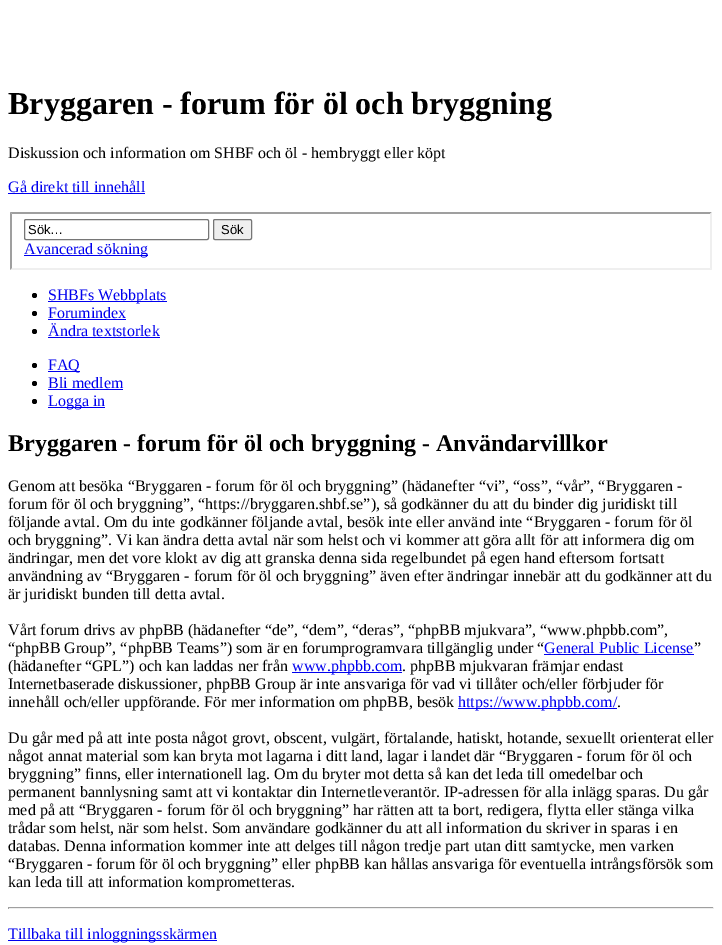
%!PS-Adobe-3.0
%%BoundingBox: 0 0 722 945
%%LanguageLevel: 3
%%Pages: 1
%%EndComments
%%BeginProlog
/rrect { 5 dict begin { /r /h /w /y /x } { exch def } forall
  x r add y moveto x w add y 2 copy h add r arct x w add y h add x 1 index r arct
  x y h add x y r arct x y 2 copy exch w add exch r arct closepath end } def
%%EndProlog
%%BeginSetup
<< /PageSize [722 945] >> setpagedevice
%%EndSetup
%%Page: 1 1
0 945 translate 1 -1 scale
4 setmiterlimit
1 setgray
0 0 722 945 rectfill
0 0 0.933 setrgbcolor
8 193 137 1 rectfill
0.624 setgray
newpath 10 212 moveto 712 212 lineto 710 214 lineto 12 214 lineto closepath fill
0.937 setgray
newpath 712 212 moveto 712 270 lineto 710 268 lineto 710 214 lineto closepath fill
newpath 712 270 moveto 10 270 lineto 12 268 lineto 710 268 lineto closepath fill
0.624 setgray
newpath 10 270 moveto 10 212 lineto 12 214 lineto 12 268 lineto closepath fill
0.463 setgray
24.5 219.5 184 20 1.5 rrect stroke
0.937 setgray
213.5 219.5 38 20 1.5 rrect gsave fill grestore
0.463 setgray
stroke
0 0 0.933 setrgbcolor
24 255 124 1 rectfill
0 setgray
newpath 34.5 295.5 2.5 0 360 arc closepath fill
0 0 0.933 setrgbcolor
48 301 119 1 rectfill
0 setgray
newpath 34.5 313.5 2.5 0 360 arc closepath fill
0 0 0.933 setrgbcolor
48 319 78 1 rectfill
0 setgray
newpath 34.5 331.5 2.5 0 360 arc closepath fill
0 0 0.933 setrgbcolor
48 337 112 1 rectfill
0 setgray
newpath 34.5 365.5 2.5 0 360 arc closepath fill
0 0 0.933 setrgbcolor
48 371 32 1 rectfill
0 setgray
newpath 34.5 383.5 2.5 0 360 arc closepath fill
0 0 0.933 setrgbcolor
48 389 75 1 rectfill
0 setgray
newpath 34.5 401.5 2.5 0 360 arc closepath fill
0 0 0.933 setrgbcolor
48 407 57 1 rectfill
544 654 150 1 rectfill
292 672 110 1 rectfill
458 708 159 1 rectfill
0.624 setgray
8 907 706 1 rectfill
0.933 setgray
713 907 1 2 rectfill
8 908 706 1 rectfill
0.624 setgray
8 907 1 2 rectfill
0 0 0.933 setrgbcolor
8 940 209 1 rectfill
/LiberationSerif-Bold [32 0 0 -32 0 0] selectfont
0 setgray
8 114 moveto (Bryggaren - forum för öl och bryggning) show
/LiberationSerif-Regular [16 0 0 -16 0 0] selectfont
8 158 moveto (Diskussion och information om SHBF och öl - hembryggt eller köpt) show
0 0 0.933 setrgbcolor
8 192 moveto (Gå direkt till innehåll) show
/LiberationSans-Regular [13 0 0 -13 0 0] selectfont
0 setgray
28 234 moveto (Sök…) show
221 234 moveto (Sök) show
/LiberationSerif-Regular [16 0 0 -16 0 0] selectfont
0 0 0.933 setrgbcolor
24 254 moveto (Avancerad sökning) show
48 300 moveto (SHBFs Webbplats) show
48 318 moveto (Forumindex) show
48 336 moveto (Ändra textstorlek) show
48 370 moveto (FAQ) show
48 388 moveto (Bli medlem) show
48 406 moveto (Logga in) show
/LiberationSerif-Bold [24 0 0 -24 0 0] selectfont
0 setgray
8 451 moveto (Bryggaren - forum för öl och bryggning - Användarvillkor) show
/LiberationSerif-Regular [16 0 0 -16 0 0] selectfont
8 491 moveto (Genom att besöka “Bryggaren - forum för öl och bryggning” \(hädanefter “vi”, “oss”, “vår”, “Bryggaren -) show
8 509 moveto (forum för öl och bryggning”, “https://bryggaren.shbf.se”\), så godkänner du att du binder dig juridiskt till) show
8 527 moveto (följande avtal. Om du inte godkänner följande avtal, besök inte eller använd inte “Bryggaren - forum för öl) show
8 545 moveto (och bryggning”. Vi kan ändra detta avtal när som helst och vi kommer att göra allt för att informera dig om) show
8 563 moveto (ändringar, men det vore klokt av dig att granska denna sida regelbundet på egen hand eftersom fortsatt) show
8 581 moveto (användning av “Bryggaren - forum för öl och bryggning” även efter ändringar innebär att du godkänner att du) show
8 599 moveto (är juridiskt bunden till detta avtal.) show
8 635 moveto (Vårt forum drivs av phpBB \(hädanefter “de”, “dem”, “deras”, “phpBB mjukvara”, “www.phpbb.com”,) show
8 653 moveto (“phpBB Group”, “phpBB Teams”\) som är en forumprogramvara tillgänglig under “) show
0 0 0.933 setrgbcolor
544 653 moveto (General Public License) show
0 setgray
694 653 moveto (”) show
8 671 moveto (\(hädanefter “GPL”\) och kan laddas ner från) show
0 0 0.933 setrgbcolor
292 671 moveto (www.phpbb.com) show
0 setgray
402 671 moveto (. phpBB mjukvaran främjar endast) show
8 689 moveto (Internetbaserade diskussioner, phpBB Group är inte ansvariga för vad vi tillåter och/eller förbjuder för) show
8 707 moveto (innehåll och/eller uppförande. För mer information om phpBB, besök) show
0 0 0.933 setrgbcolor
458 707 moveto (https://www.phpbb.com/) show
0 setgray
617 707 moveto (.) show
8 743 moveto (Du går med på att inte posta något grovt, obscent, vulgärt, förtalande, hatiskt, hotande, sexuellt orienterat eller) show
8 761 moveto (något annat material som kan bryta mot lagarna i ditt land, lagar i landet där “Bryggaren - forum för öl och) show
8 779 moveto (bryggning” finns, eller internationell lag. Om du bryter mot detta så kan det leda till omedelbar och) show
8 797 moveto (permanent bannlysning samt att vi kontaktar din Internetleverantör. IP-adressen för alla inlägg sparas. Du går) show
8 815 moveto (med på att “Bryggaren - forum för öl och bryggning” har rätten att ta bort, redigera, flytta eller stänga vilka) show
8 833 moveto (trådar som helst, när som helst. Som användare godkänner du att all information du skriver in sparas i en) show
8 851 moveto (databas. Denna information kommer inte att delges till någon tredje part utan ditt samtycke, men varken) show
8 869 moveto (“Bryggaren - forum för öl och bryggning” eller phpBB kan hållas ansvariga för eventuella intrångsförsök som) show
8 887 moveto (kan leda till att information komprometteras.) show
0 0 0.933 setrgbcolor
8 939 moveto (Tillbaka till inloggningsskärmen) show
showpage
%%EOF
